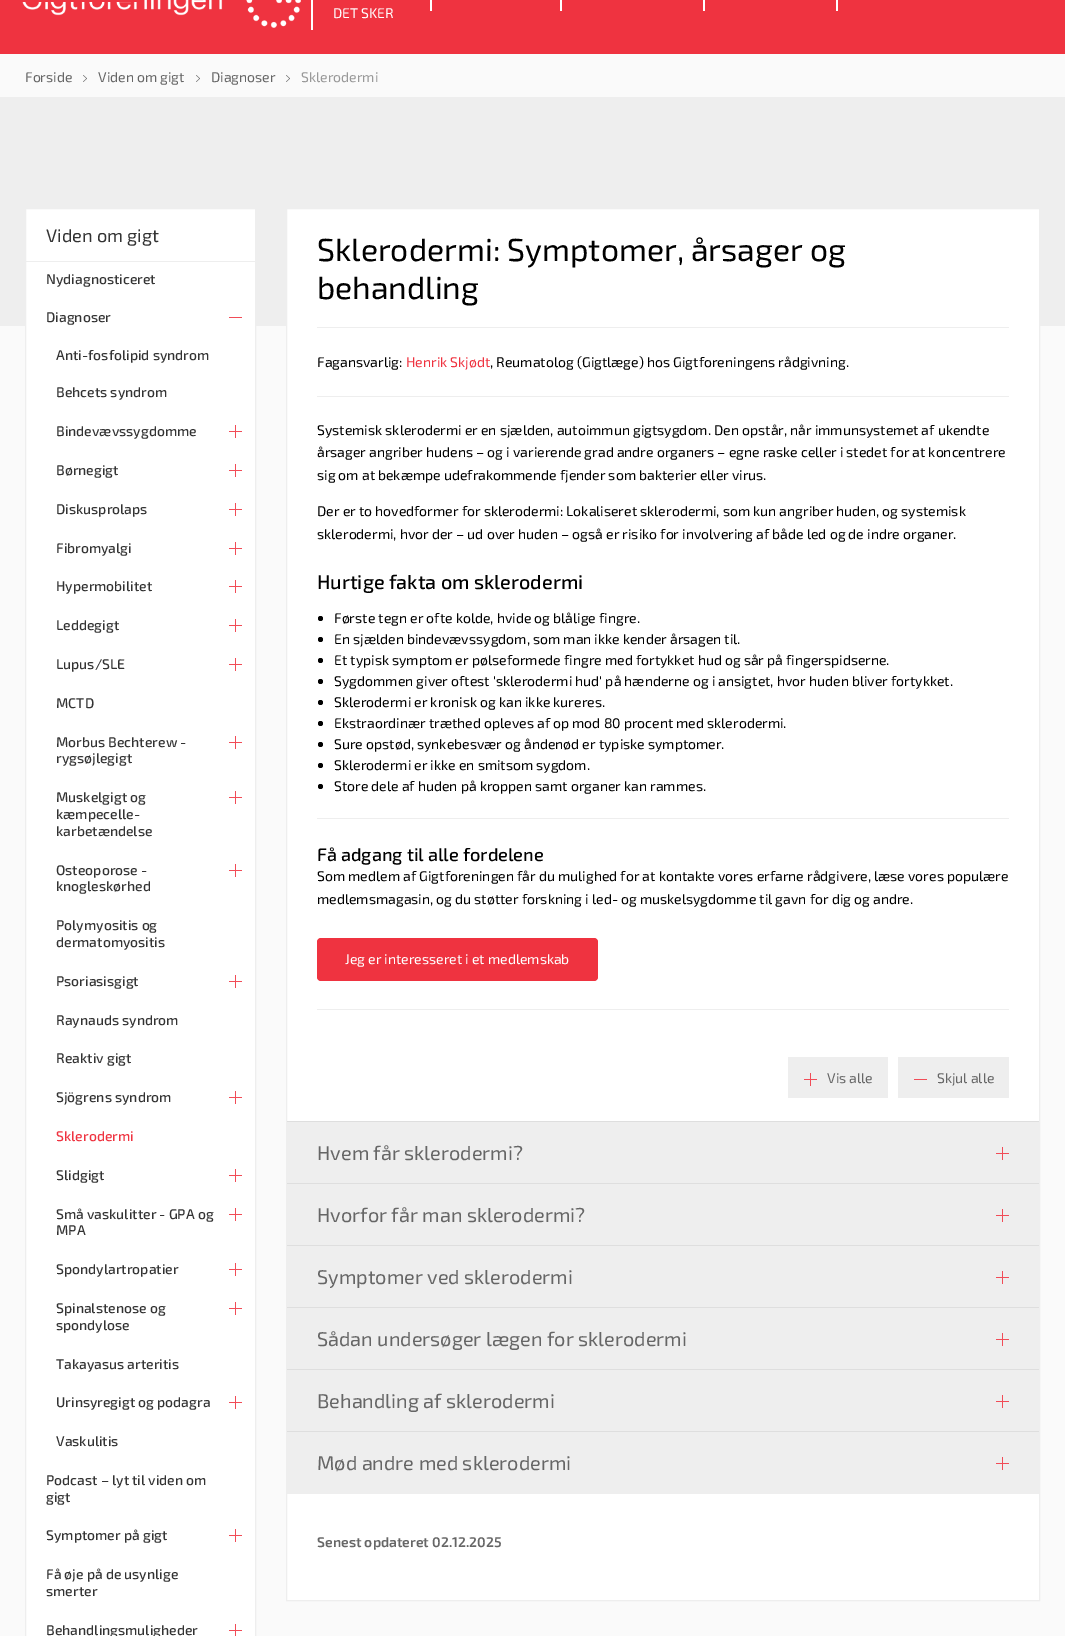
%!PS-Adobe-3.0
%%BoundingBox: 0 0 1065 1636
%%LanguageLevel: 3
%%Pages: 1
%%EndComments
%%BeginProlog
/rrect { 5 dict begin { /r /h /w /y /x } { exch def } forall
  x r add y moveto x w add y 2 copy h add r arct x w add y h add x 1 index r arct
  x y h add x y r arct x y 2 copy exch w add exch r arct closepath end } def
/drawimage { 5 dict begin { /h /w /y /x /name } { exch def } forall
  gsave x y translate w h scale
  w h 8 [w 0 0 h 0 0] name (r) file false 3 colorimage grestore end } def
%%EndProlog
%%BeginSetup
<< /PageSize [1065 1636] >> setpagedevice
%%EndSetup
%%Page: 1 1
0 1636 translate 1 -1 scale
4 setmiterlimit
0.98 setgray
0 0 1065 1636 rectfill
0.937 0.2 0.251 setrgbcolor
0 0 1065 54 rectfill
(images/1.raw) 22 0 279 28 drawimage
22 0 116 2 rectfill
1 setgray
430 0 2 11 rectfill
560 0 2 11 rectfill
703 0 2 11 rectfill
836 0 2 11 rectfill
311 0 2 30 rectfill
(images/2.raw) 83 75 4 7 drawimage
(images/2.raw) 196 75 4 7 drawimage
(images/2.raw) 286 75 4 7 drawimage
0.933 setgray
0 97 1065 229 rectfill
1 setgray
newpath 25.5 208.5 moveto 255.5 208.5 lineto 255.5 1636.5 lineto 25.5 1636.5 lineto closepath gsave fill grestore
0.933 setgray
stroke
26 261 229 1 rectfill
0.945 0.298 0.341 setrgbcolor
229 317 13 1 rectfill
(images/3.raw) 229 425 13 13 drawimage
(images/3.raw) 229 464 13 13 drawimage
(images/3.raw) 229 503 13 13 drawimage
(images/3.raw) 229 542 13 13 drawimage
(images/3.raw) 229 580 13 13 drawimage
(images/3.raw) 229 619 13 13 drawimage
(images/3.raw) 229 658 13 13 drawimage
(images/3.raw) 229 736 13 13 drawimage
(images/3.raw) 229 791 13 13 drawimage
(images/3.raw) 229 864 13 13 drawimage
(images/3.raw) 229 975 13 13 drawimage
(images/3.raw) 229 1091 13 13 drawimage
(images/3.raw) 229 1169 13 13 drawimage
(images/3.raw) 229 1208 13 13 drawimage
(images/3.raw) 229 1263 13 13 drawimage
(images/3.raw) 229 1302 13 13 drawimage
(images/3.raw) 229 1396 13 13 drawimage
(images/3.raw) 229 1529 13 13 drawimage
(images/4.raw) 229 1624 13 12 drawimage
1 setgray
newpath 286.5 208.5 moveto 1039.5 208.5 lineto 1039.5 1600.5 lineto 286.5 1600.5 lineto closepath gsave fill grestore
0.933 setgray
stroke
317 327 692 1 rectfill
317 396 692 1 rectfill
0 setgray
newpath 320.5 618.5 2.5 0 360 arc closepath fill
newpath 320.5 639.5 2.5 0 360 arc closepath fill
newpath 320.5 660.5 2.5 0 360 arc closepath fill
newpath 320.5 681.5 2.5 0 360 arc closepath fill
newpath 320.5 702.5 2.5 0 360 arc closepath fill
newpath 320.5 723.5 2.5 0 360 arc closepath fill
newpath 320.5 744.5 2.5 0 360 arc closepath fill
newpath 320.5 765.5 2.5 0 360 arc closepath fill
newpath 320.5 786.5 2.5 0 360 arc closepath fill
0.933 setgray
317 818 692 1 rectfill
0.937 0.2 0.251 setrgbcolor
317 938 281 43 4 rrect fill
0.933 setgray
317 1009 692 1 rectfill
788 1057 100 41 rectfill
(images/5.raw) 804 1073 13 13 drawimage
898 1057 111 41 rectfill
0.945 0.298 0.341 setrgbcolor
914 1079 13 1 rectfill
0.933 setgray
287 1122 752 61 rectfill
0.871 setgray
287 1121 752 1 rectfill
(images/5.raw) 996 1147 13 13 drawimage
0.933 setgray
287 1184 752 61 rectfill
0.871 setgray
287 1183 752 1 rectfill
(images/5.raw) 996 1209 13 13 drawimage
0.933 setgray
287 1246 752 61 rectfill
0.871 setgray
287 1245 752 1 rectfill
(images/5.raw) 996 1271 13 13 drawimage
0.933 setgray
287 1308 752 61 rectfill
0.871 setgray
287 1307 752 1 rectfill
(images/5.raw) 996 1333 13 13 drawimage
0.933 setgray
287 1370 752 61 rectfill
0.871 setgray
287 1369 752 1 rectfill
(images/5.raw) 996 1395 13 13 drawimage
0.933 setgray
287 1432 752 62 rectfill
0.871 setgray
287 1431 752 1 rectfill
(images/5.raw) 996 1457 13 13 drawimage
/Exo2-Regular [14 0 0 -14 0 0] selectfont
1 setgray
333 18 moveto (DET SKER) show
0.4 setgray
25 82 moveto (Forside) show
98 82 moveto (Viden om gigt) show
211 82 moveto (Diagnoser) show
0.6 setgray
301 82 moveto (Sklerodermi) show
/Exo2-Regular [18.25 0 0 -18.25 0 0] selectfont
0.2 setgray
46 242 moveto (Viden om gigt) show
/Exo2-Medium [14 0 0 -14 0 0] selectfont
46 284 moveto (Nydiagnosticeret) show
46 322 moveto (Diagnoser) show
56 360 moveto (Anti-fosfolipid syndrom) show
56 397 moveto (Behcets syndrom) show
56 436 moveto (Bindevævssygdomme) show
56 475 moveto (Børnegigt) show
56 514 moveto (Diskusprolaps) show
56 553 moveto (Fibromyalgi) show
56 591 moveto (Hypermobilitet) show
56 630 moveto (Leddegigt) show
56 669 moveto (Lupus/SLE) show
56 708 moveto (MCTD) show
56 747 moveto (Morbus Bechterew -) show
56 763 moveto (rygsøjlegigt) show
56 802 moveto (Muskelgigt og) show
56 819 moveto (kæmpecelle-) show
56 836 moveto (karbetændelse) show
56 875 moveto (Osteoporose -) show
56 891 moveto (knogleskørhed) show
56 930 moveto (Polymyositis og) show
56 947 moveto (dermatomyositis) show
56 986 moveto (Psoriasisgigt) show
56 1025 moveto (Raynauds syndrom) show
56 1063 moveto (Reaktiv gigt) show
56 1102 moveto (Sjögrens syndrom) show
0.937 0.2 0.251 setrgbcolor
56 1141 moveto (Sklerodermi) show
0.2 setgray
56 1180 moveto (Slidgigt) show
56 1219 moveto (Små vaskulitter - GPA og) show
56 1235 moveto (MPA) show
56 1274 moveto (Spondylartropatier) show
56 1313 moveto (Spinalstenose og) show
56 1330 moveto (spondylose) show
56 1369 moveto (Takayasus arteritis) show
56 1407 moveto (Urinsyregigt og podagra) show
56 1446 moveto (Vaskulitis) show
46 1485 moveto (Podcast – lyt til viden om) show
46 1502 moveto (gigt) show
46 1540 moveto (Symptomer på gigt) show
46 1579 moveto (Få øje på de usynlige) show
46 1596 moveto (smerter) show
46 1635 moveto (Behandlingsmuligheder) show
/Exo2-Regular [31.9 0 0 -31.9 0 0] selectfont
0 setgray
317 261 moveto (Sklerodermi: Symptomer, årsager og) show
317 299 moveto (behandling) show
/Exo2-Regular [14 0 0 -14 0 0] selectfont
317 367 moveto (Fagansvarlig:) show
0.937 0.2 0.251 setrgbcolor
406 367 moveto (Henrik Skjødt) show
0 setgray
490 367 moveto (, Reumatolog \(Gigtlæge\) hos Gigtforeningens rådgivning.) show
317 435 moveto (Systemisk sklerodermi er en sjælden, autoimmun gigtsygdom. Den opstår, når immunsystemet af ukendte) show
317 457 moveto (årsager angriber hudens – og i varierende grad andre organers – egne raske celler i stedet for at koncentrere) show
317 480 moveto (sig om at bekæmpe udefrakommende fjender som bakterier eller virus.) show
317 516 moveto (Der er to hovedformer for sklerodermi: Lokaliseret sklerodermi, som kun angriber huden, og systemisk) show
317 539 moveto (sklerodermi, hvor der – ud over huden – også er risiko for involvering af både led og de indre organer.) show
/Exo2-Medium [19.9 0 0 -19.9 0 0] selectfont
317 589 moveto (Hurtige fakta om sklerodermi) show
/Exo2-Regular [14 0 0 -14 0 0] selectfont
334 623 moveto (Første tegn er ofte kolde, hvide og blålige fingre.) show
334 644 moveto (En sjælden bindevævssygdom, som man ikke kender årsagen til.) show
334 665 moveto (Et typisk symptom er pølseformede fingre med fortykket hud og sår på fingerspidserne.) show
334 686 moveto (Sygdommen giver oftest 'sklerodermi hud' på hænderne og i ansigtet, hvor huden bliver fortykket.) show
334 707 moveto (Sklerodermi er kronisk og kan ikke kureres.) show
334 728 moveto (Ekstraordinær træthed opleves af op mod 80 procent med sklerodermi.) show
334 749 moveto (Sure opstød, synkebesvær og åndenød er typiske symptomer.) show
334 770 moveto (Sklerodermi er ikke en smitsom sygdom.) show
334 791 moveto (Store dele af huden på kroppen samt organer kan rammes.) show
/Exo2-Medium [18.25 0 0 -18.25 0 0] selectfont
317 861 moveto (Få adgang til alle fordelene) show
/Exo2-Regular [14 0 0 -14 0 0] selectfont
317 881 moveto (Som medlem af Gigtforeningen får du mulighed for at kontakte vores erfarne rådgivere, læse vores populære) show
317 904 moveto (medlemsmagasin, og du støtter forskning i led- og muskelsygdomme til gavn for dig og andre.) show
1 setgray
345 964 moveto (Jeg er interesseret i et medlemskab) show
0.4 setgray
827 1083 moveto (Vis alle) show
937 1083 moveto (Skjul alle) show
/Exo2-Regular [19.9 0 0 -19.9 0 0] selectfont
317 1160 moveto (Hvem får sklerodermi?) show
317 1222 moveto (Hvorfor får man sklerodermi?) show
317 1284 moveto (Symptomer ved sklerodermi) show
317 1346 moveto (Sådan undersøger lægen for sklerodermi) show
317 1408 moveto (Behandling af sklerodermi) show
317 1470 moveto (Mød andre med sklerodermi) show
/Exo2-SemiBold [14 0 0 -14 0 0] selectfont
317 1547 moveto (Senest opdateret 02.12.2025) show
showpage
%%EOF
